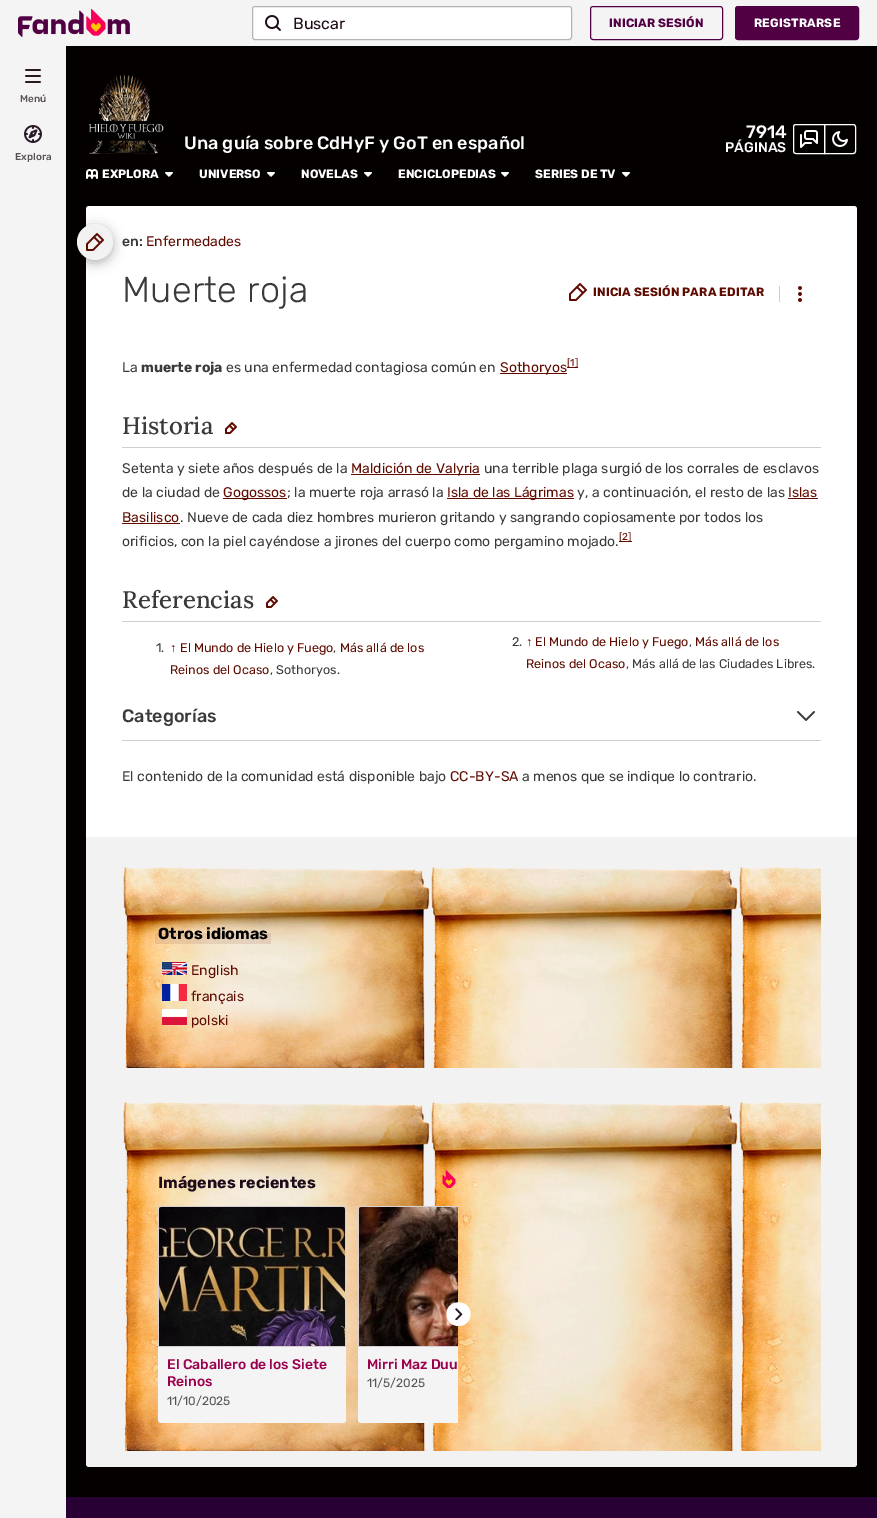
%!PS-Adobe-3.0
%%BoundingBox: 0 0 877 1518
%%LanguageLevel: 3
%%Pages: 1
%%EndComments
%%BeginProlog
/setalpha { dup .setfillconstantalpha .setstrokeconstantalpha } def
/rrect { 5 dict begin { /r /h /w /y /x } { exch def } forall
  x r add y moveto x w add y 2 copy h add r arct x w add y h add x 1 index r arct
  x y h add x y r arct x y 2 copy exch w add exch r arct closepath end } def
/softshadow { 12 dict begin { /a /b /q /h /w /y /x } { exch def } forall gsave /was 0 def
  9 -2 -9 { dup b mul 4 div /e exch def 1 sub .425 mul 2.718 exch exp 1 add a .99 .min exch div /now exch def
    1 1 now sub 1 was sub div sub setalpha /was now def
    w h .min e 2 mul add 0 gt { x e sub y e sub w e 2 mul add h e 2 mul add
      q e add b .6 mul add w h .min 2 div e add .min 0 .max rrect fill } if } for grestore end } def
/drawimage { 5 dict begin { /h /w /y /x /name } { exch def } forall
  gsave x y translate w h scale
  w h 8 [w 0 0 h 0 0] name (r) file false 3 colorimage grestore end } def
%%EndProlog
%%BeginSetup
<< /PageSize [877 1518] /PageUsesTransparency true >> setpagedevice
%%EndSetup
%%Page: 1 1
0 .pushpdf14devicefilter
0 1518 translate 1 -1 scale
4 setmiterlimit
0.016 0 0 setrgbcolor
0 0 877 1518 rectfill
0.957 setgray
0 0 877 46 rectfill
(images/1.raw) 18 9 112 28 drawimage
1 setgray
252.5 6.5 319 33 2.5 rrect gsave fill grestore
0.702 setgray
stroke
(images/2.raw) 265 15 16 16 drawimage
0.322 0 0.267 setrgbcolor
590.5 6.5 132 33 2.5 rrect stroke
735.5 6.5 123 33 2.5 rrect gsave fill grestore
stroke
1 setgray
newpath 89 206 moveto 854 206 lineto 855.5 206 857 207.5 857 209 curveto 857 837 lineto 86 837 lineto 86 209 lineto 86 207.5 87.5 206 89 206 curveto closepath fill
0 setgray
77 227 36 36 18 6 0.3 softshadow
0.957 setgray
0 46 66 1472 rectfill
(images/3.raw) 25 69 16 14 drawimage
(images/4.raw) 24 125 18 18 drawimage
(images/5.raw) 89 74 75 80 drawimage
1 setgray
newpath 796 124.5 moveto 824.5 124.5 lineto 824.5 153.5 lineto 796 153.5 lineto 794.5 153.5 793.5 152.5 793.5 151 curveto 793.5 127 lineto 793.5 125.5 794.5 124.5 796 124.5 curveto closepath stroke
(images/6.raw) 800 130 18 18 drawimage
newpath 824.5 124.5 moveto 853 124.5 lineto 854.5 124.5 855.5 125.5 855.5 127 curveto 855.5 151 lineto 855.5 152.5 854.5 153.5 853 153.5 curveto 824.5 153.5 lineto closepath stroke
(images/7.raw) 832 131 16 16 drawimage
(images/8.raw) 86 169 12 10 drawimage
(images/9.raw) 165 172 8 5 drawimage
(images/9.raw) 267 172 8 5 drawimage
(images/9.raw) 364 172 8 5 drawimage
(images/9.raw) 501 172 8 5 drawimage
(images/9.raw) 622 172 8 5 drawimage
0.949 setgray
newpath 95 242 18 0 360 arc closepath fill
(images/10.raw) 86 233 18 18 drawimage
(images/11.raw) 569 283 18 18 drawimage
0.808 setgray
779 286 1 16 rectfill
(images/12.raw) 798 286 4 16 drawimage
0.373 0.043 0 setrgbcolor
500 373 67 1 rectfill
567 367 11 1 rectfill
0.808 setgray
122 447 699 1 rectfill
(images/13.raw) 225 422 12 12 drawimage
0.373 0.043 0 setrgbcolor
351 474 129 1 rectfill
223 498 64 1 rectfill
447 498 127 1 rectfill
788 498 30 1 rectfill
122 523 58 1 rectfill
619 541 3 1 rectfill
622 541 10 1 rectfill
0.808 setgray
122 621 699 1 rectfill
(images/13.raw) 266 596 12 12 drawimage
122 740 699 1 rectfill
(images/14.raw) 797 711 18 10 drawimage
0.949 setgray
newpath 86 837 moveto 857 837 lineto 857 1464 lineto 857 1465.5 855.5 1467 854 1467 curveto 89 1467 lineto 87.5 1467 86 1465.5 86 1464 curveto closepath fill
(images/15.raw) 123 867 698 201 drawimage
(images/16.raw) 162 962 25 13 drawimage
(images/17.raw) 162 984 25 17 drawimage
(images/18.raw) 162 1009 25 16 drawimage
(images/19.raw) 123 1102 698 349 drawimage
(images/20.raw) 442 1170 14 18 drawimage
gsave
158 1206 300 217 rectclip
0.839 0.816 0.835 setrgbcolor
newpath 361 1206.5 moveto 543 1206.5 lineto 544.5 1206.5 545.5 1207.5 545.5 1209 curveto 545.5 1346.5 lineto 358.5 1346.5 lineto 358.5 1209 lineto 358.5 1207.5 359.5 1206.5 361 1206.5 curveto closepath stroke
grestore
(images/23.raw) 359 1207 99 139 drawimage
1 setgray
newpath 446.5 1314 moveto 446.5 1298.5 470.5 1298.5 470.5 1314 curveto 470.5 1330 446.5 1330 446.5 1314 curveto closepath fill
(images/21.raw) 455 1308 8 12 drawimage
0.839 0.816 0.835 setrgbcolor
newpath 161 1206.5 moveto 343 1206.5 lineto 344.5 1206.5 345.5 1207.5 345.5 1209 curveto 345.5 1346.5 lineto 158.5 1346.5 lineto 158.5 1209 lineto 158.5 1207.5 159.5 1206.5 161 1206.5 curveto closepath stroke
(images/22.raw) 159 1207 186 139 drawimage
0.957 setgray
newpath 158 1347 moveto 346 1347 lineto 346 1420 lineto 346 1421.5 344.5 1423 343 1423 curveto 161 1423 lineto 159.5 1423 158 1421.5 158 1420 curveto closepath fill
newpath 358 1347 moveto 458 1347 lineto 458 1423 lineto 361 1423 lineto 359.5 1423 358 1421.5 358 1420 curveto closepath fill
0.157 0 0.2 setrgbcolor
66 1497 811 21 rectfill
/Rubik-Regular [16 0 0 -16 0 0] selectfont
0.118 0.047 0.106 setrgbcolor
293 29 moveto (Buscar) show
/Rubik-Bold [12 0 0 -12 0 0] selectfont
0.322 0 0.267 setrgbcolor
609 27 moveto 0.15 0 (INICIAR SESIÓN) ashow
1 setgray
754 27 moveto 0.15 0 (REGISTRARSE) ashow
/Rubik-Medium [10 0 0 -10 0 0] selectfont
0.349 0.325 0.345 setrgbcolor
20 102 moveto (Menú) show
15 160 moveto (Explora) show
/Rubik-Medium [18 0 0 -18 0 0] selectfont
1 setgray
184 149 moveto (Una guía sobre CdHyF y GoT en español) show
746 138 moveto (7914) show
/Rubik-Medium [14 0 0 -14 0 0] selectfont
725 152 moveto (PÁGINAS) show
/Rubik-Bold [12 0 0 -12 0 0] selectfont
102 178 moveto (EXPLORA) show
199 178 moveto (UNIVERSO) show
301 178 moveto (NOVELAS) show
398 178 moveto (ENCICLOPEDIAS) show
535 178 moveto (SERIES DE TV) show
/Rubik-Medium [14 0 0 -14 0 0] selectfont
0.227 setgray
122 246 moveto (en:) show
/Rubik-Regular [14 0 0 -14 0 0] selectfont
0.373 0.043 0 setrgbcolor
146 246 moveto (Enfermedades) show
/Rubik-Light [36 0 0 -36 0 0] selectfont
0.227 setgray
122 302 moveto 0.25 0 (Muerte roja) ashow
/Rubik-Bold [12 0 0 -12 0 0] selectfont
0.373 0.043 0 setrgbcolor
593 296 moveto 0.15 0 (INICIA SESIÓN PARA EDITAR) ashow
/Rubik-Regular [14 0 0 -14 0 0] selectfont
0.227 setgray
122 372 moveto (La) show
/Rubik-Bold [14 0 0 -14 0 0] selectfont
141 372 moveto (muerte roja) show
/Rubik-Regular [14 0 0 -14 0 0] selectfont
226 372 moveto (es una enfermedad contagiosa común en) show
0.373 0.043 0 setrgbcolor
500 372 moveto (Sothoryos) show
/Rubik-Regular [10 0 0 -10 0 0] selectfont
567 366 moveto ([1]) show
/Lora-Medium [24 0 0 -24 0 0] selectfont
0.227 setgray
122 434 moveto (Historia) show
/Rubik-Regular [14 0 0 -14 0 0] selectfont
122 473 moveto (Setenta y siete años después de la) show
0.373 0.043 0 setrgbcolor
351 473 moveto (Maldición de Valyria) show
0.227 setgray
484 473 moveto (una terrible plaga surgió de los corrales de esclavos) show
122 497 moveto (de la ciudad de) show
0.373 0.043 0 setrgbcolor
223 497 moveto (Gogossos) show
0.227 setgray
287 497 moveto (; la muerte roja arrasó la) show
0.373 0.043 0 setrgbcolor
447 497 moveto (Isla de las Lágrimas) show
0.227 setgray
577 497 moveto (y, a continuación, el resto de las) show
0.373 0.043 0 setrgbcolor
788 497 moveto (Islas) show
122 522 moveto (Basilisco) show
0.227 setgray
180 522 moveto (. Nueve de cada diez hombres murieron gritando y sangrando copiosamente por todos los) show
122 546 moveto (orificios, con la piel cayéndose a jirones del cuerpo como pergamino mojado.) show
/Rubik-Regular [10 0 0 -10 0 0] selectfont
0.373 0.043 0 setrgbcolor
619 540 moveto ([2) show
628 540 moveto (]) show
/Lora-Medium [24 0 0 -24 0 0] selectfont
0.227 setgray
122 608 moveto (Referencias) show
/Rubik-Regular [12.6 0 0 -12.6 0 0] selectfont
156 652 moveto (1.) show
/LiberationSans-Regular [12.6 0 0 -12.6 0 0] selectfont
0.373 0.043 0 setrgbcolor
170 652 moveto (↑) show
/Rubik-Regular [12.6 0 0 -12.6 0 0] selectfont
180 652 moveto (El Mundo de Hielo y Fuego) show
0.227 setgray
333 652 moveto (,) show
0.373 0.043 0 setrgbcolor
340 652 moveto (Más allá de los) show
170 674 moveto (Reinos del Ocaso) show
0.227 setgray
270 674 moveto (, Sothoryos.) show
512 646 moveto (2.) show
/LiberationSans-Regular [12.6 0 0 -12.6 0 0] selectfont
0.373 0.043 0 setrgbcolor
526 646 moveto (↑) show
/Rubik-Regular [12.6 0 0 -12.6 0 0] selectfont
535 646 moveto (El Mundo de Hielo y Fuego) show
0.227 setgray
689 646 moveto (,) show
0.373 0.043 0 setrgbcolor
695 646 moveto (Más allá de los) show
526 668 moveto (Reinos del Ocaso) show
0.227 setgray
626 668 moveto (, Más allá de las Ciudades Libres.) show
/Rubik-Medium [18 0 0 -18 0 0] selectfont
122 722 moveto (Categorías) show
/Rubik-Regular [14 0 0 -14 0 0] selectfont
122 781 moveto (El contenido de la comunidad está disponible bajo) show
0.373 0.043 0 setrgbcolor
450 781 moveto (CC-BY-SA) show
0.227 setgray
522 781 moveto (a menos que se indique lo contrario.) show
/Rubik-Bold [16 0 0 -16 0 0] selectfont
0 setgray
158 939 moveto (Otros idiomas) show
/Rubik-Regular [14 0 0 -14 0 0] selectfont
0.373 0.043 0 setrgbcolor
191 975 moveto (English) show
191 1001 moveto (français) show
191 1025 moveto (polski) show
/Rubik-Bold [16 0 0 -16 0 0] selectfont
0.118 0.047 0.106 setrgbcolor
158 1188 moveto (Imágenes recientes) show
/Rubik-Medium [14 0 0 -14 0 0] selectfont
0.608 0 0.306 setrgbcolor
167 1369 moveto (El Caballero de los Siete) show
167 1386 moveto (Reinos) show
/Rubik-Regular [12 0 0 -12 0 0] selectfont
0.349 0.325 0.345 setrgbcolor
167 1405 moveto (11/10/2025) show
/Rubik-Medium [14 0 0 -14 0 0] selectfont
0.608 0 0.306 setrgbcolor
367 1369 moveto (Mirri Maz Duu) show
/Rubik-Regular [12 0 0 -12 0 0] selectfont
0.349 0.325 0.345 setrgbcolor
367 1387 moveto (11/5/2025) show
.poppdf14devicefilter showpage
%%EOF
